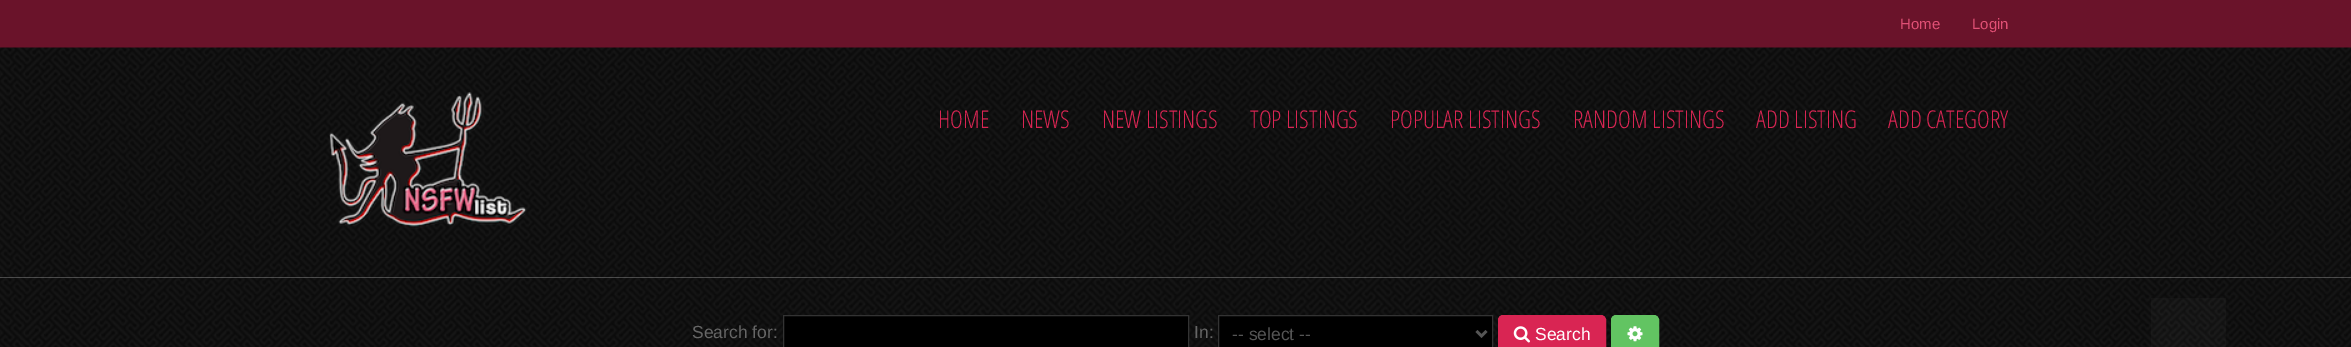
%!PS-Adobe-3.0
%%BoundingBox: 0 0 2351 347
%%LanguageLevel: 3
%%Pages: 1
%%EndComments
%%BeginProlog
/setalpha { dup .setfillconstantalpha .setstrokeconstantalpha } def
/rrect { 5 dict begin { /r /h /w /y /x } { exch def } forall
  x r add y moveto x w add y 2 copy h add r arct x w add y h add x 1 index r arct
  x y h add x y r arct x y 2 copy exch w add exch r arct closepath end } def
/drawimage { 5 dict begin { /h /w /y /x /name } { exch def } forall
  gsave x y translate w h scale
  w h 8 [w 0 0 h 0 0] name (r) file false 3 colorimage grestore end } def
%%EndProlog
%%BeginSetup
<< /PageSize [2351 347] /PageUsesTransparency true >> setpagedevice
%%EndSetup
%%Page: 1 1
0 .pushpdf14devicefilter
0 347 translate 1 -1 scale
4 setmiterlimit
1 setgray
0 0 2351 347 rectfill
0.416 0.075 0.165 setrgbcolor
0 0 2351 48 rectfill
(images/1.raw) 0 47 2351 231 drawimage
(images/2.raw) 329 92 198 137 drawimage
(images/3.raw) 0 277 2351 70 drawimage
0 setgray
newpath 783.5 315.5 moveto 1188.5 315.5 lineto 1188.5 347.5 lineto 783.5 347.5 lineto closepath gsave fill grestore
0.2 setgray
stroke
0 setgray
newpath 1218.5 315.5 moveto 1492.5 315.5 lineto 1492.5 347.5 lineto 1218.5 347.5 lineto closepath gsave fill grestore
0.2 setgray
stroke
0.333 setgray
2.5 setlinewidth
newpath 1476.5 331 moveto 1481.5 336 lineto 1486.5 331 lineto stroke
0.851 0.145 0.325 setrgbcolor
1498.5 315.5 107 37 4.5 rrect gsave fill grestore
1 setlinewidth
stroke
(images/4.raw) 1513 326 17 17 drawimage
0.384 0.769 0.384 setrgbcolor
1611.5 315.5 47 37 4.5 rrect gsave fill grestore
stroke
(images/5.raw) 1627 326 16 16 drawimage
0.03 setalpha
0.8 setgray
2151 298 75 49 rectfill
/LiberationSans-Regular [15 0 0 -15 0 0] selectfont
1 setalpha
0.882 0.314 0.459 setrgbcolor
1900 29 moveto (Home) show
1972 29 moveto (Login) show
/OpenSans-Light [24.5 0 0 -24.5 0 0] selectfont
0.851 0.145 0.325 setrgbcolor
938 128 moveto (HOME) show
1021 128 moveto (NEWS) show
1102 128 moveto (NEW LISTINGS) show
1250 128 moveto (TOP LISTINGS) show
1390 128 moveto (POPULAR LISTINGS) show
1573 128 moveto (RANDOM LISTINGS) show
1756 128 moveto (ADD LISTING) show
1888 128 moveto (ADD CATEGORY) show
/LiberationSans-Regular [17.5 0 0 -17.5 0 0] selectfont
0.4 setgray
692 338 moveto (Search for:) show
1194 338 moveto (In:) show
0.333 setgray
1232 340 moveto (-- select --) show
1 setgray
1535 340 moveto (Search) show
.poppdf14devicefilter showpage
%%EOF
